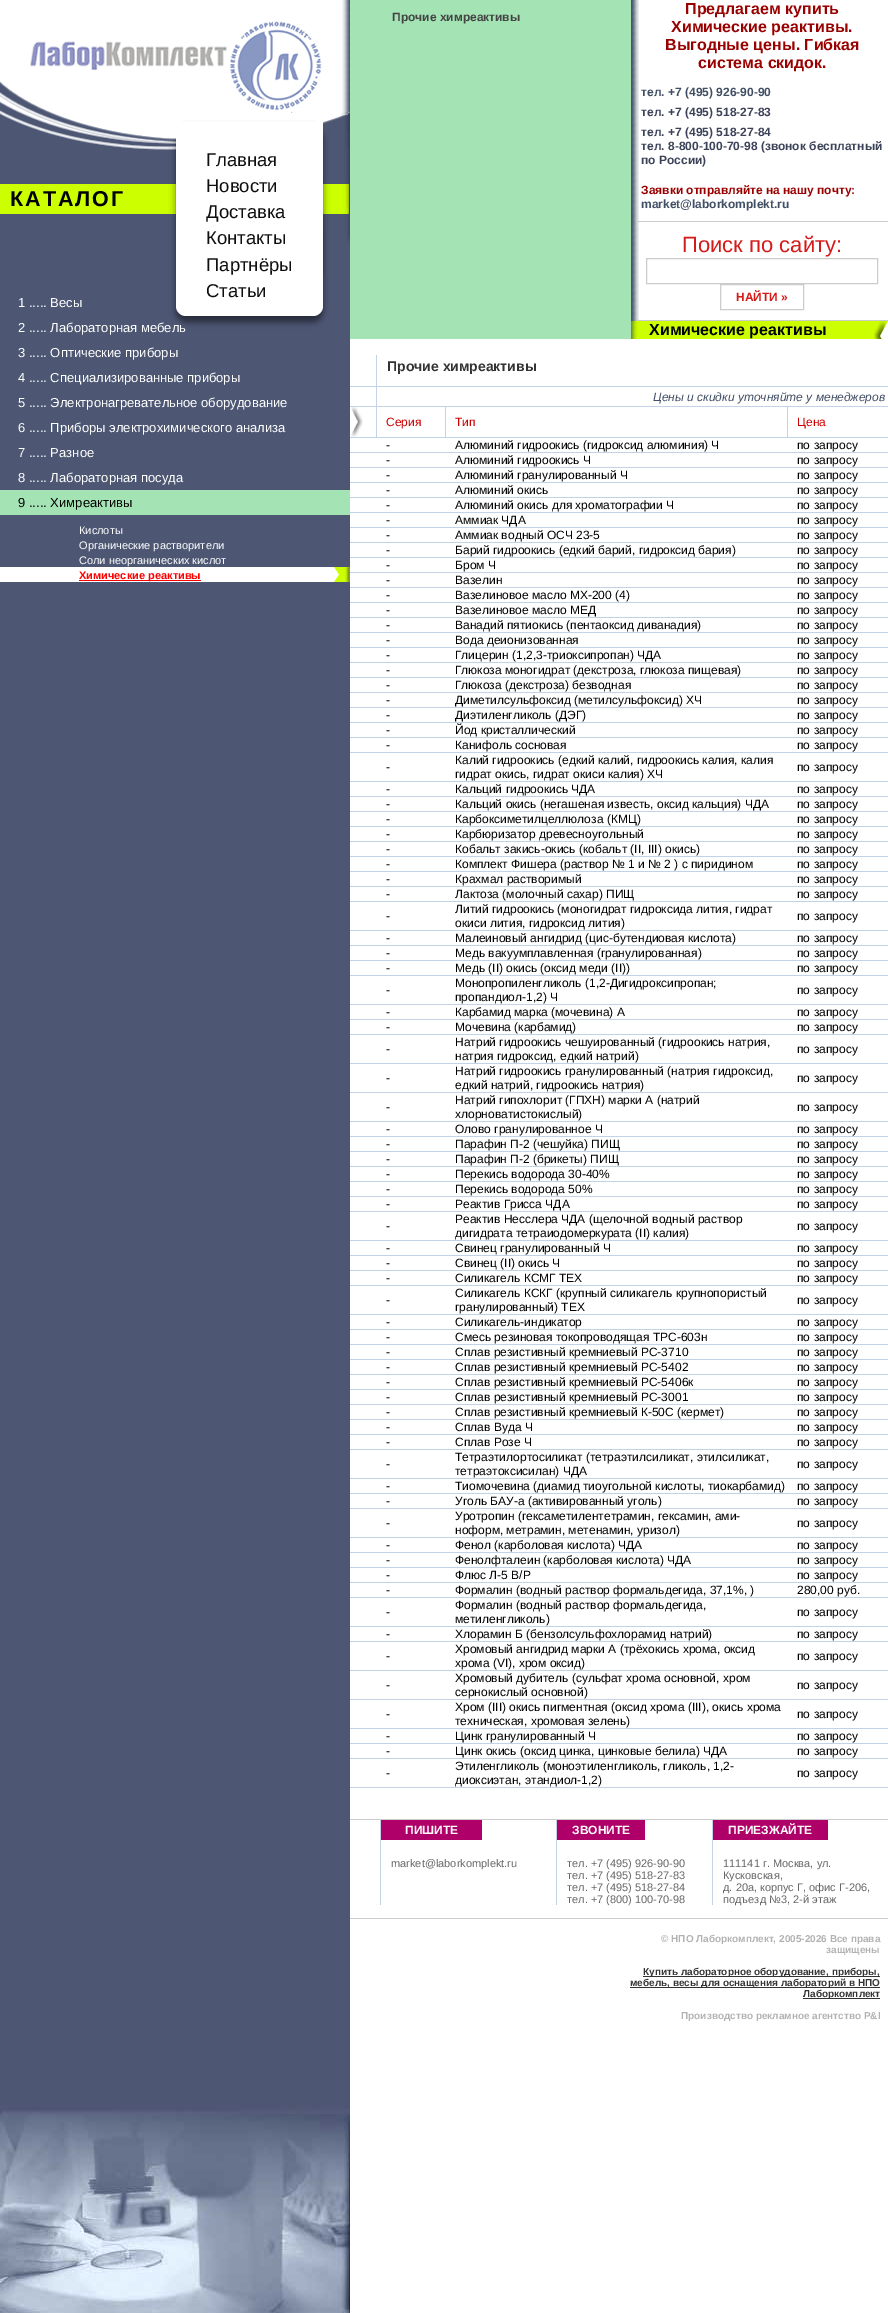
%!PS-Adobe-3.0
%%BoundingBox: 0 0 888 2313
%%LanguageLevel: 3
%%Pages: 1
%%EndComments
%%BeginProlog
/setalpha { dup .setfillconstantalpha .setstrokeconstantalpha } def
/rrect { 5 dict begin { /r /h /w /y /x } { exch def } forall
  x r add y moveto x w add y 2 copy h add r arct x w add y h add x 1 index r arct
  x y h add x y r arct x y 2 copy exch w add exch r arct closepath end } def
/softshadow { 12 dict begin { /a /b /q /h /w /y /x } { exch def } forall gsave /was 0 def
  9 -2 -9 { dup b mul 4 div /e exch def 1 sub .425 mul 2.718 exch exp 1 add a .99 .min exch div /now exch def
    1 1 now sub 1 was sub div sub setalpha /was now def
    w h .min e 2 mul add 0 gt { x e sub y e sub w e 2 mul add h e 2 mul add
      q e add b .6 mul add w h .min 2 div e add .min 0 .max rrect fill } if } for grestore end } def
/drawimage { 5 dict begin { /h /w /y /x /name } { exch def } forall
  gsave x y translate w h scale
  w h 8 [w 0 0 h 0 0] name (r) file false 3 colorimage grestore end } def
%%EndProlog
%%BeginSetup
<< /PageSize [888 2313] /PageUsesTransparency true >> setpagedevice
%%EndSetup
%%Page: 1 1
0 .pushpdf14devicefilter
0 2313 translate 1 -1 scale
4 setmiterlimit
1 setgray
0 0 888 2313 rectfill
(images/1.raw) 0 81 50 31 drawimage
(images/2.raw) 30 41 197 30 drawimage
(images/3.raw) 342 0 8 112 drawimage
(images/4.raw) 230 21 92 90 drawimage
0.302 0.341 0.455 setrgbcolor
0 150 176 140 rectfill
(images/5.raw) 0 112 228 38 drawimage
0.8 1 0 setrgbcolor
0 184 176 30 rectfill
(images/6.raw) 228 112 122 178 drawimage
0.302 0.341 0.455 setrgbcolor
0 290 350 1816 rectfill
0 setgray
176 128 147 194 10 3.5 0.5 softshadow
1 setgray
newpath 176 122 moveto 323 122 lineto 323 306 lineto 323 311.5 318.5 316 313 316 curveto 186 316 lineto 180.5 316 176 311.5 176 306 curveto closepath fill
169 125 7 13 rectfill
(images/7.raw) 0 2106 350 207 drawimage
0.643 0.89 0.706 setrgbcolor
0 490 350 25 rectfill
1 setgray
0 567 334 15 rectfill
(images/8.raw) 334 567 16 15 drawimage
1 0 0 setrgbcolor
79 580 122 1 rectfill
0.643 0.89 0.706 setrgbcolor
350 0 281 339 rectfill
(images/9.raw) 631 0 8 321 drawimage
0.8 setgray
636 221 252 1 rectfill
636 320 252 1 rectfill
646.5 258.5 231 25 rectstroke
720.5 284.5 83 25 rectstroke
0.8 1 0 setrgbcolor
638 321 236 18 rectfill
(images/10.raw) 631 321 7 18 drawimage
(images/11.raw) 874 321 14 18 drawimage
0.761 0.824 0.906 setrgbcolor
376 355 1 83 rectfill
350 386 538 1 rectfill
350 406 538 1 rectfill
(images/12.raw) 351 407 12 30 drawimage
350 437 27 1 rectfill
445 407 1 31 rectfill
377 437 69 1 rectfill
787 407 1 31 rectfill
446 437 442 1 rectfill
350 452 538 1 rectfill
350 467 538 1 rectfill
350 482 538 1 rectfill
350 497 538 1 rectfill
350 512 538 1 rectfill
350 527 538 1 rectfill
350 542 538 1 rectfill
350 557 538 1 rectfill
350 572 538 1 rectfill
350 587 538 1 rectfill
350 602 538 1 rectfill
350 617 538 1 rectfill
350 632 538 1 rectfill
350 647 538 1 rectfill
350 662 538 1 rectfill
350 677 538 1 rectfill
350 692 538 1 rectfill
350 707 538 1 rectfill
350 722 538 1 rectfill
350 737 538 1 rectfill
350 752 538 1 rectfill
350 781 538 1 rectfill
350 796 538 1 rectfill
350 811 538 1 rectfill
350 826 538 1 rectfill
350 841 538 1 rectfill
350 856 538 1 rectfill
350 871 538 1 rectfill
350 886 538 1 rectfill
350 901 538 1 rectfill
350 930 538 1 rectfill
350 945 538 1 rectfill
350 960 538 1 rectfill
350 975 538 1 rectfill
350 1004 538 1 rectfill
350 1019 538 1 rectfill
350 1034 538 1 rectfill
350 1063 538 1 rectfill
350 1092 538 1 rectfill
350 1121 538 1 rectfill
350 1136 538 1 rectfill
350 1151 538 1 rectfill
350 1166 538 1 rectfill
350 1181 538 1 rectfill
350 1196 538 1 rectfill
350 1211 538 1 rectfill
350 1240 538 1 rectfill
350 1255 538 1 rectfill
350 1270 538 1 rectfill
350 1285 538 1 rectfill
350 1314 538 1 rectfill
350 1329 538 1 rectfill
350 1344 538 1 rectfill
350 1359 538 1 rectfill
350 1374 538 1 rectfill
350 1389 538 1 rectfill
350 1404 538 1 rectfill
350 1419 538 1 rectfill
350 1434 538 1 rectfill
350 1449 538 1 rectfill
350 1478 538 1 rectfill
350 1493 538 1 rectfill
350 1508 538 1 rectfill
350 1537 538 1 rectfill
350 1552 538 1 rectfill
350 1567 538 1 rectfill
350 1582 538 1 rectfill
350 1597 538 1 rectfill
350 1626 538 1 rectfill
350 1641 538 1 rectfill
350 1670 538 1 rectfill
350 1699 538 1 rectfill
350 1728 538 1 rectfill
350 1743 538 1 rectfill
350 1758 538 1 rectfill
350 1787 538 1 rectfill
0.8 setgray
350 1819 538 1 rectfill
350 1918 538 1 rectfill
0.761 0.824 0.906 setrgbcolor
380 1820 1 85 rectfill
0.682 0 0.408 setrgbcolor
381 1820 101 20 rectfill
0.761 0.824 0.906 setrgbcolor
556 1820 1 85 rectfill
0.682 0 0.408 setrgbcolor
557 1820 88 20 rectfill
0.761 0.824 0.906 setrgbcolor
712 1820 1 85 rectfill
0.682 0 0.408 setrgbcolor
713 1820 115 20 rectfill
0.2 setgray
643 1976 237 1 rectfill
630 1987 250 1 rectfill
803 1998 77 1 rectfill
/LiberationSans-Bold [21.5 0 0 -21.5 0 0] selectfont
0 setgray
10 206 moveto 2 0 (КАТАЛОГ) ashow
/LiberationSans-Regular [18.5 0 0 -18.5 0 0] selectfont
0.059 setgray
206 166 moveto (Главная) show
206 192 moveto (Новости) show
206 218 moveto (Доставка) show
206 244 moveto (Контакты) show
206 271 moveto (Партнёры) show
206 297 moveto (Статьи) show
/LiberationSans-Regular [13 0 0 -13 0 0] selectfont
1 setgray
18 307 moveto (1 ..... Весы) show
18 332 moveto (2 ..... Лабораторная мебель) show
18 357 moveto (3 ..... Оптические приборы) show
18 382 moveto (4 ..... Специализированные приборы) show
18 407 moveto (5 ..... Электронагревательное оборудование) show
18 432 moveto (6 ..... Приборы электрохимического анализа) show
18 457 moveto (7 ..... Разное) show
18 482 moveto (8 ..... Лабораторная посуда) show
0 setgray
18 507 moveto (9 ..... Химреактивы) show
/LiberationSans-Regular [11 0 0 -11 0 0] selectfont
1 setgray
79 534 moveto (Кислоты) show
79 549 moveto (Органические растворители) show
79 564 moveto (Соли неорганических кислот) show
/LiberationSans-Bold [11 0 0 -11 0 0] selectfont
1 0 0 setrgbcolor
79 579 moveto (Химические реактивы) show
/LiberationSans-Bold [12 0 0 -12 0 0] selectfont
0.267 setgray
392 21 moveto (Прочие химреактивы) show
/LiberationSans-Bold [16 0 0 -16 0 0] selectfont
0.6 0 0 setrgbcolor
685 14 moveto (Предлагаем купить) show
671 32 moveto (Химические реактивы.) show
665 50 moveto (Выгодные цены. Гибкая) show
698 68 moveto (система скидок.) show
/LiberationSans-Bold [12 0 0 -12 0 0] selectfont
0.255 0.31 0.396 setrgbcolor
641 96 moveto (тел. +7 \(495\) 926-90-90) show
0.235 0.263 0.349 setrgbcolor
641 116 moveto (тел. +7 \(495\) 518-27-83) show
641 136 moveto (тел. +7 \(495\) 518-27-84) show
641 150 moveto (тел. 8-800-100-70-98 \(звонок бесплатный) show
641 164 moveto (по России\)) show
0.6 0 0 setrgbcolor
641 194 moveto (Заявки отправляйте на нашу почту:) show
0.255 0.31 0.396 setrgbcolor
641 208 moveto (market@laborkomplekt.ru) show
/LiberationSans-Regular [22 0 0 -22 0 0] selectfont
0.827 0.106 0.098 setrgbcolor
682 252 moveto (Поиск по сайту:) show
/LiberationSans-Bold [12 0 0 -12 0 0] selectfont
736 301 moveto (НАЙТИ ») show
/LiberationSans-Bold [16 0 0 -16 0 0] selectfont
0 setgray
649 335 moveto (Химические реактивы) show
/LiberationSans-Bold [14 0 0 -14 0 0] selectfont
0.2 setgray
387 371 moveto (Прочие химреактивы) show
/LiberationSans-Italic [12 0 0 -12 0 0] selectfont
0.255 0.31 0.396 setrgbcolor
653 401 moveto (Цены и скидки уточняйте у менеджеров) show
/LiberationSans-Regular [12 0 0 -12 0 0] selectfont
0.8 0 0 setrgbcolor
386 426 moveto (Серия) show
455 426 moveto (Тип) show
797 426 moveto (Цена) show
0 setgray
386 449 moveto (-) show
455 449 moveto (Алюминий гидроокись \(гидроксид алюминия\) Ч) show
797 449 moveto (по запросу) show
386 464 moveto (-) show
455 464 moveto (Алюминий гидроокись Ч) show
797 464 moveto (по запросу) show
386 479 moveto (-) show
455 479 moveto (Алюминий гранулированный Ч) show
797 479 moveto (по запросу) show
386 494 moveto (-) show
455 494 moveto (Алюминий окись) show
797 494 moveto (по запросу) show
386 509 moveto (-) show
455 509 moveto (Алюминий окись для хроматографии Ч) show
797 509 moveto (по запросу) show
386 524 moveto (-) show
455 524 moveto (Аммиак ЧДА) show
797 524 moveto (по запросу) show
386 539 moveto (-) show
455 539 moveto (Аммиак водный ОСЧ 23-5) show
797 539 moveto (по запросу) show
386 554 moveto (-) show
455 554 moveto (Барий гидроокись \(едкий барий, гидроксид бария\)) show
797 554 moveto (по запросу) show
386 569 moveto (-) show
455 569 moveto (Бром Ч) show
797 569 moveto (по запросу) show
386 584 moveto (-) show
455 584 moveto (Вазелин) show
797 584 moveto (по запросу) show
386 599 moveto (-) show
455 599 moveto (Вазелиновое масло МХ-200 \(4\)) show
797 599 moveto (по запросу) show
386 614 moveto (-) show
455 614 moveto (Вазелиновое масло МЕД) show
797 614 moveto (по запросу) show
386 629 moveto (-) show
455 629 moveto (Ванадий пятиокись \(пентаоксид диванадия\)) show
797 629 moveto (по запросу) show
386 644 moveto (-) show
455 644 moveto (Вода деионизованная) show
797 644 moveto (по запросу) show
386 659 moveto (-) show
455 659 moveto (Глицерин \(1,2,3-триоксипропан\) ЧДА) show
797 659 moveto (по запросу) show
386 674 moveto (-) show
455 674 moveto (Глюкоза моногидрат \(декстроза, глюкоза пищевая\)) show
797 674 moveto (по запросу) show
386 689 moveto (-) show
455 689 moveto (Глюкоза \(декстроза\) безводная) show
797 689 moveto (по запросу) show
386 704 moveto (-) show
455 704 moveto (Диметилсульфоксид \(метилсульфоксид\) ХЧ) show
797 704 moveto (по запросу) show
386 719 moveto (-) show
455 719 moveto (Диэтиленгликоль \(ДЭГ\)) show
797 719 moveto (по запросу) show
386 734 moveto (-) show
455 734 moveto (Йод кристаллический) show
797 734 moveto (по запросу) show
386 749 moveto (-) show
455 749 moveto (Канифоль сосновая) show
797 749 moveto (по запросу) show
386 771 moveto (-) show
455 764 moveto (Калий гидроокись \(едкий калий, гидроокись калия, калия) show
455 778 moveto (гидрат окись, гидрат окиси калия\) ХЧ) show
797 771 moveto (по запросу) show
386 793 moveto (-) show
455 793 moveto (Кальций гидроокись ЧДА) show
797 793 moveto (по запросу) show
386 808 moveto (-) show
455 808 moveto (Кальций окись \(негашеная известь, оксид кальция\) ЧДА) show
797 808 moveto (по запросу) show
386 823 moveto (-) show
455 823 moveto (Карбоксиметилцеллюлоза \(КМЦ\)) show
797 823 moveto (по запросу) show
386 838 moveto (-) show
455 838 moveto (Карбюризатор древесноугольный) show
797 838 moveto (по запросу) show
386 853 moveto (-) show
455 853 moveto (Кобальт закись-окись \(кобальт \(II, III\) окись\)) show
797 853 moveto (по запросу) show
386 868 moveto (-) show
455 868 moveto (Комплект Фишера \(раствор № 1 и № 2 \) с пиридином) show
797 868 moveto (по запросу) show
386 883 moveto (-) show
455 883 moveto (Крахмал растворимый) show
797 883 moveto (по запросу) show
386 898 moveto (-) show
455 898 moveto (Лактоза \(молочный сахар\) ПИЩ) show
797 898 moveto (по запросу) show
386 920 moveto (-) show
455 913 moveto (Литий гидроокись \(моногидрат гидроксида лития, гидрат) show
455 927 moveto (окиси лития, гидроксид лития\)) show
797 920 moveto (по запросу) show
386 942 moveto (-) show
455 942 moveto (Малеиновый ангидрид \(цис-бутендиовая кислота\)) show
797 942 moveto (по запросу) show
386 957 moveto (-) show
455 957 moveto (Медь вакуумплавленная \(гранулированная\)) show
797 957 moveto (по запросу) show
386 972 moveto (-) show
455 972 moveto (Медь \(II\) окись \(оксид меди \(II\)\)) show
797 972 moveto (по запросу) show
386 994 moveto (-) show
455 987 moveto (Монопропиленгликоль \(1,2-Дигидроксипропан;) show
455 1001 moveto (пропандиол-1,2\) Ч) show
797 994 moveto (по запросу) show
386 1016 moveto (-) show
455 1016 moveto (Карбамид марка \(мочевина\) А) show
797 1016 moveto (по запросу) show
386 1031 moveto (-) show
455 1031 moveto (Мочевина \(карбамид\)) show
797 1031 moveto (по запросу) show
386 1053 moveto (-) show
455 1046 moveto (Натрий гидроокись чешуированный \(гидроокись натрия,) show
455 1060 moveto (натрия гидроксид, едкий натрий\)) show
797 1053 moveto (по запросу) show
386 1082 moveto (-) show
455 1075 moveto (Натрий гидроокись гранулированный \(натрия гидроксид,) show
455 1089 moveto (едкий натрий, гидроокись натрия\)) show
797 1082 moveto (по запросу) show
386 1111 moveto (-) show
455 1104 moveto (Натрий гипохлорит \(ГПХН\) марки А \(натрий) show
455 1118 moveto (хлорноватистокислый\)) show
797 1111 moveto (по запросу) show
386 1133 moveto (-) show
455 1133 moveto (Олово гранулированное Ч) show
797 1133 moveto (по запросу) show
386 1148 moveto (-) show
455 1148 moveto (Парафин П-2 \(чешуйка\) ПИЩ) show
797 1148 moveto (по запросу) show
386 1163 moveto (-) show
455 1163 moveto (Парафин П-2 \(брикеты\) ПИЩ) show
797 1163 moveto (по запросу) show
386 1178 moveto (-) show
455 1178 moveto (Перекись водорода 30-40%) show
797 1178 moveto (по запросу) show
386 1193 moveto (-) show
455 1193 moveto (Перекись водорода 50%) show
797 1193 moveto (по запросу) show
386 1208 moveto (-) show
455 1208 moveto (Реактив Грисса ЧДА) show
797 1208 moveto (по запросу) show
386 1230 moveto (-) show
455 1223 moveto (Реактив Несслера ЧДА \(щелочной водный раствор) show
455 1237 moveto (дигидрата тетраиодомеркурата \(II\) калия\)) show
797 1230 moveto (по запросу) show
386 1252 moveto (-) show
455 1252 moveto (Свинец гранулированный Ч) show
797 1252 moveto (по запросу) show
386 1267 moveto (-) show
455 1267 moveto (Свинец \(II\) окись Ч) show
797 1267 moveto (по запросу) show
386 1282 moveto (-) show
455 1282 moveto (Силикагель КСМГ ТЕХ) show
797 1282 moveto (по запросу) show
386 1304 moveto (-) show
455 1297 moveto (Силикагель КСКГ \(крупный силикагель крупнопористый) show
455 1311 moveto (гранулированный\) ТЕХ) show
797 1304 moveto (по запросу) show
386 1326 moveto (-) show
455 1326 moveto (Силикагель-индикатор) show
797 1326 moveto (по запросу) show
386 1341 moveto (-) show
455 1341 moveto (Смесь резиновая токопроводящая ТРС-603н) show
797 1341 moveto (по запросу) show
386 1356 moveto (-) show
455 1356 moveto (Сплав резистивный кремниевый РС-3710) show
797 1356 moveto (по запросу) show
386 1371 moveto (-) show
455 1371 moveto (Сплав резистивный кремниевый РС-5402) show
797 1371 moveto (по запросу) show
386 1386 moveto (-) show
455 1386 moveto (Сплав резистивный кремниевый РС-5406к) show
797 1386 moveto (по запросу) show
386 1401 moveto (-) show
455 1401 moveto (Сплав резистивный кремниевый РС-3001) show
797 1401 moveto (по запросу) show
386 1416 moveto (-) show
455 1416 moveto (Сплав резистивный кремниевый К-50С \(кермет\)) show
797 1416 moveto (по запросу) show
386 1431 moveto (-) show
455 1431 moveto (Сплав Вуда Ч) show
797 1431 moveto (по запросу) show
386 1446 moveto (-) show
455 1446 moveto (Сплав Розе Ч) show
797 1446 moveto (по запросу) show
386 1468 moveto (-) show
455 1461 moveto (Тетраэтилортосиликат \(тетраэтилсиликат, этилсиликат,) show
455 1475 moveto (тетраэтоксисилан\) ЧДА) show
797 1468 moveto (по запросу) show
386 1490 moveto (-) show
455 1490 moveto (Тиомочевина \(диамид тиоугольной кислоты, тиокарбамид\)) show
797 1490 moveto (по запросу) show
386 1505 moveto (-) show
455 1505 moveto (Уголь БАУ-а \(активированный уголь\)) show
797 1505 moveto (по запросу) show
386 1527 moveto (-) show
455 1520 moveto (Уротропин \(гексаметилентетрамин, гексамин, ами-) show
455 1534 moveto (ноформ, метрамин, метенамин, уризол\)) show
797 1527 moveto (по запросу) show
386 1549 moveto (-) show
455 1549 moveto (Фенол \(карболовая кислота\) ЧДА) show
797 1549 moveto (по запросу) show
386 1564 moveto (-) show
455 1564 moveto (Фенолфталеин \(карболовая кислота\) ЧДА) show
797 1564 moveto (по запросу) show
386 1579 moveto (-) show
455 1579 moveto (Флюс Л-5 В/Р) show
797 1579 moveto (по запросу) show
386 1594 moveto (-) show
455 1594 moveto (Формалин \(водный раствор формальдегида, 37,1%, \)) show
797 1594 moveto (280,00 руб.) show
386 1616 moveto (-) show
455 1609 moveto (Формалин \(водный раствор формальдегида,) show
455 1623 moveto (метиленгликоль\)) show
797 1616 moveto (по запросу) show
386 1638 moveto (-) show
455 1638 moveto (Хлорамин Б \(бензолсульфохлорамид натрий\)) show
797 1638 moveto (по запросу) show
386 1660 moveto (-) show
455 1653 moveto (Хромовый ангидрид марки А \(трёхокись хрома, оксид) show
455 1667 moveto (хрома \(VI\), хром оксид\)) show
797 1660 moveto (по запросу) show
386 1689 moveto (-) show
455 1682 moveto (Хромовый дубитель \(сульфат хрома основной, хром) show
455 1696 moveto (сернокислый основной\)) show
797 1689 moveto (по запросу) show
386 1718 moveto (-) show
455 1711 moveto (Хром \(III\) окись пигментная \(оксид хрома \(III\), окись хрома) show
455 1725 moveto (техническая, хромовая зелень\)) show
797 1718 moveto (по запросу) show
386 1740 moveto (-) show
455 1740 moveto (Цинк гранулированный Ч) show
797 1740 moveto (по запросу) show
386 1755 moveto (-) show
455 1755 moveto (Цинк окись \(оксид цинка, цинковые белила\) ЧДА) show
797 1755 moveto (по запросу) show
386 1777 moveto (-) show
455 1770 moveto (Этиленгликоль \(моноэтиленгликоль, гликоль, 1,2-) show
455 1784 moveto (диоксиэтан, этандиол-1,2\)) show
797 1777 moveto (по запросу) show
/LiberationSans-Bold [12 0 0 -12 0 0] selectfont
1 setgray
405 1834 moveto (ПИШИТЕ) show
/LiberationSans-Regular [11 0 0 -11 0 0] selectfont
0.4 setgray
391 1867 moveto (market@laborkomplekt.ru) show
/LiberationSans-Bold [12 0 0 -12 0 0] selectfont
1 setgray
572 1834 moveto (ЗВОНИТЕ) show
/LiberationSans-Regular [11 0 0 -11 0 0] selectfont
0.4 setgray
567 1867 moveto (тел. +7 \(495\) 926-90-90) show
567 1879 moveto (тел. +7 \(495\) 518-27-83) show
567 1891 moveto (тел. +7 \(495\) 518-27-84) show
567 1903 moveto (тел. +7 \(800\) 100-70-98) show
/LiberationSans-Bold [12 0 0 -12 0 0] selectfont
1 setgray
728 1834 moveto (ПРИЕЗЖАЙТЕ) show
/LiberationSans-Regular [11 0 0 -11 0 0] selectfont
0.4 setgray
723 1867 moveto (111141 г. Москва, ул.) show
723 1879 moveto (Кусковская,) show
723 1891 moveto (д. 20а, корпус Г, офис Г-206,) show
723 1903 moveto (подъезд №3, 2-й этаж) show
/LiberationSans-Bold [10 0 0 -10 0 0] selectfont
0.698 setgray
661 1942 moveto (© НПО Лаборкомплект, 2005-2026 Все права) show
826 1953 moveto (защищены) show
0.2 setgray
643 1975 moveto (Купить лабораторное оборудование, приборы,) show
630 1986 moveto (мебель, весы для оснащения лабораторий в НПО) show
803 1997 moveto (Лаборкомплект) show
0.698 setgray
681 2019 moveto (Производство рекламное агентство P&I) show
.poppdf14devicefilter showpage
%%EOF
